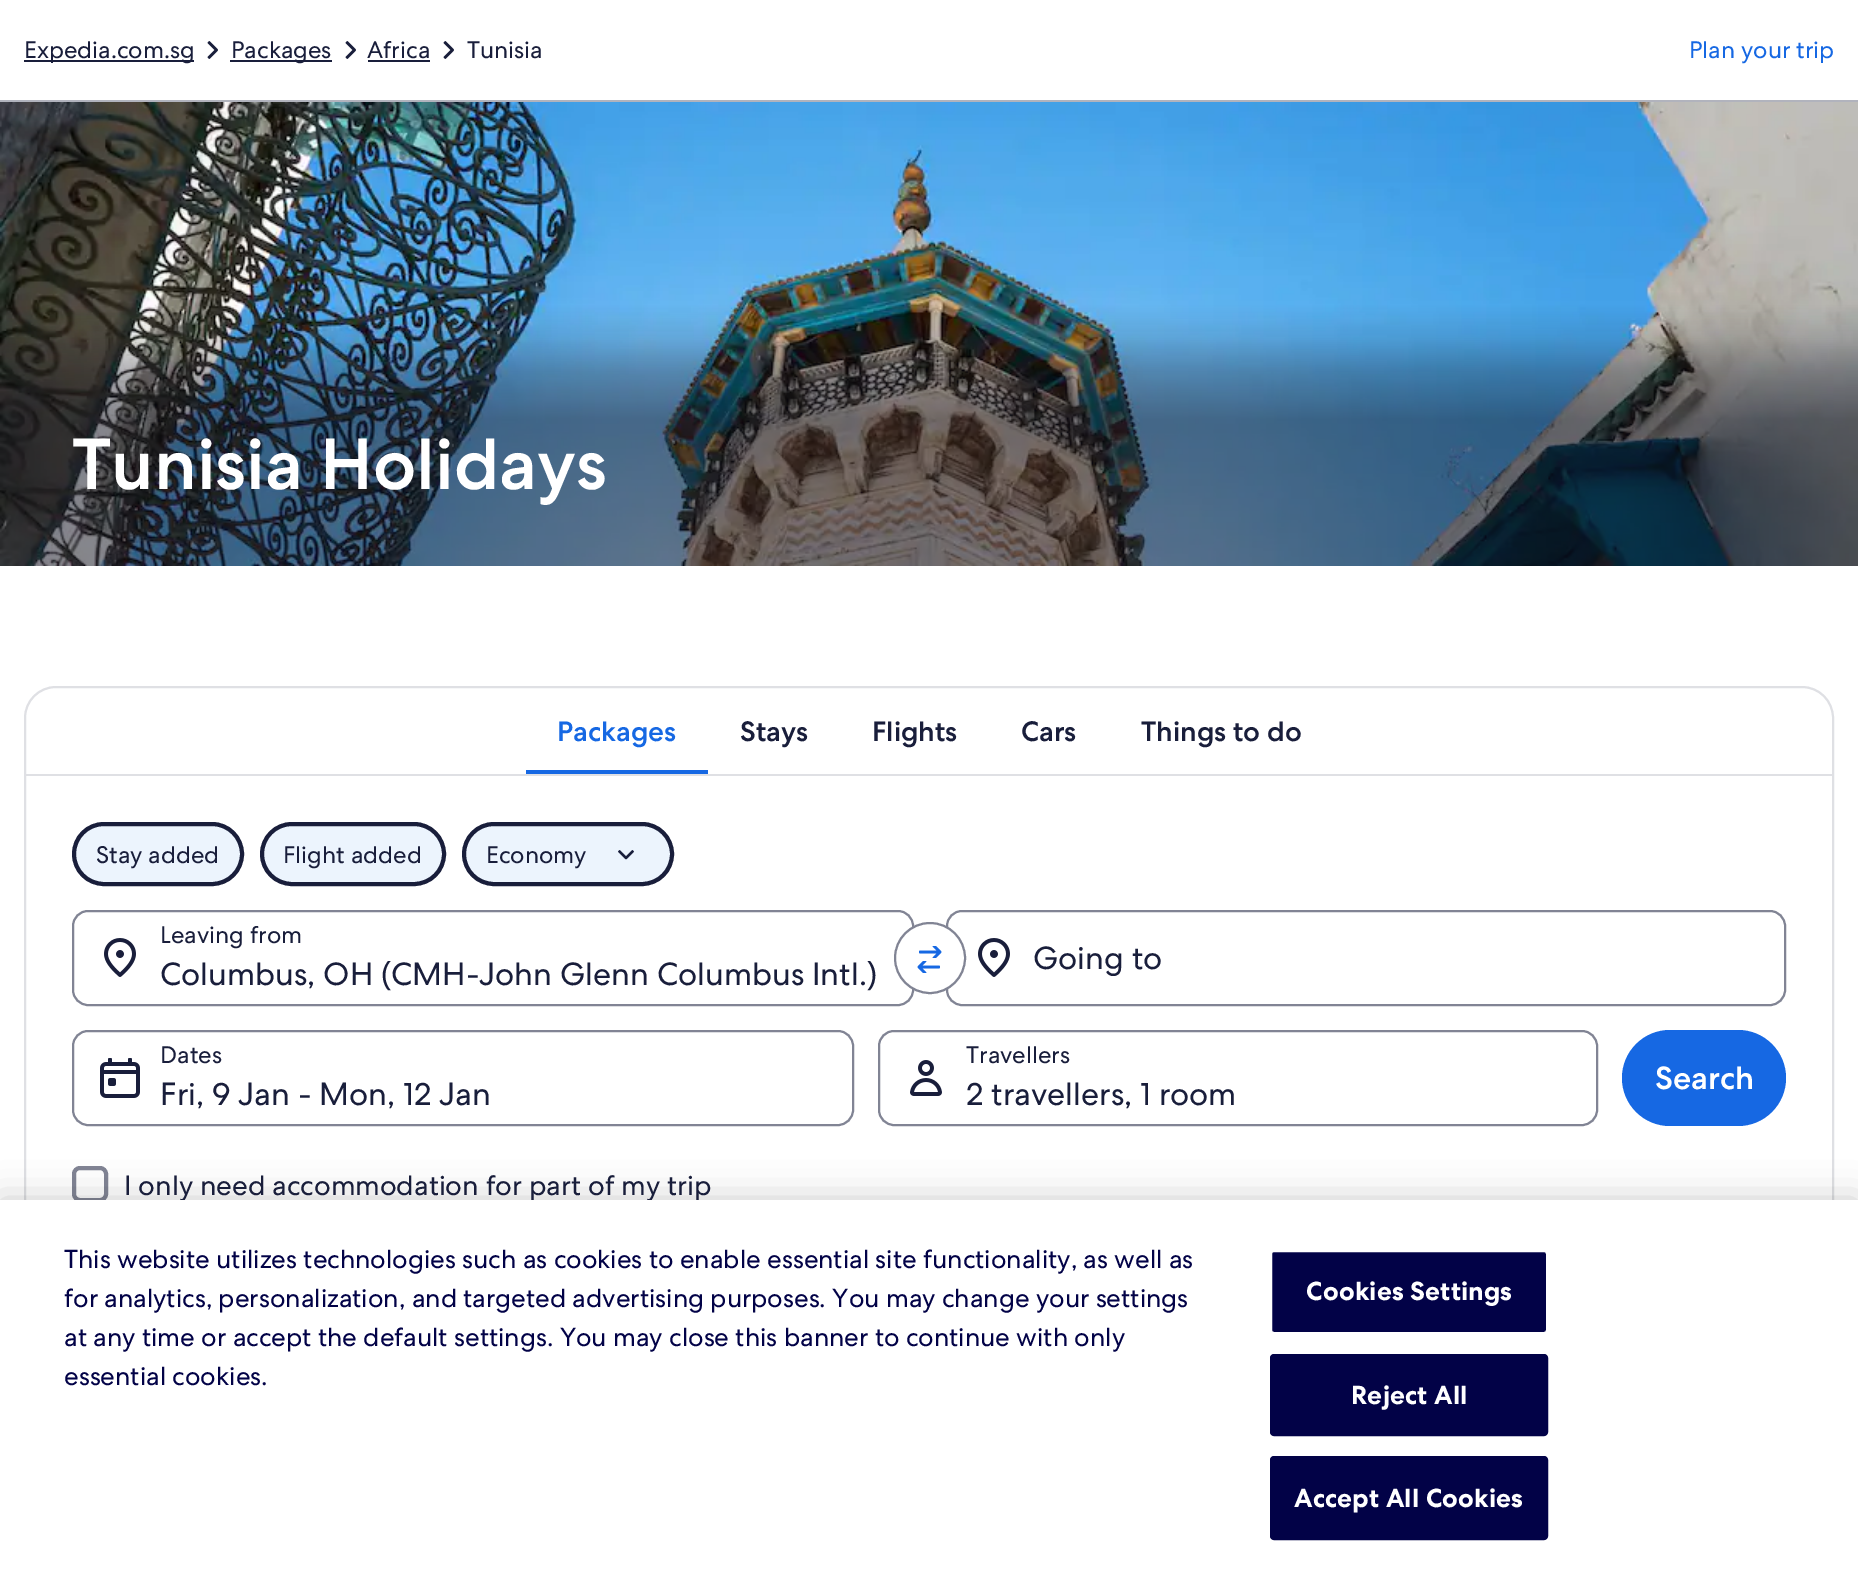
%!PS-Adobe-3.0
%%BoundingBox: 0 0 1858 1579
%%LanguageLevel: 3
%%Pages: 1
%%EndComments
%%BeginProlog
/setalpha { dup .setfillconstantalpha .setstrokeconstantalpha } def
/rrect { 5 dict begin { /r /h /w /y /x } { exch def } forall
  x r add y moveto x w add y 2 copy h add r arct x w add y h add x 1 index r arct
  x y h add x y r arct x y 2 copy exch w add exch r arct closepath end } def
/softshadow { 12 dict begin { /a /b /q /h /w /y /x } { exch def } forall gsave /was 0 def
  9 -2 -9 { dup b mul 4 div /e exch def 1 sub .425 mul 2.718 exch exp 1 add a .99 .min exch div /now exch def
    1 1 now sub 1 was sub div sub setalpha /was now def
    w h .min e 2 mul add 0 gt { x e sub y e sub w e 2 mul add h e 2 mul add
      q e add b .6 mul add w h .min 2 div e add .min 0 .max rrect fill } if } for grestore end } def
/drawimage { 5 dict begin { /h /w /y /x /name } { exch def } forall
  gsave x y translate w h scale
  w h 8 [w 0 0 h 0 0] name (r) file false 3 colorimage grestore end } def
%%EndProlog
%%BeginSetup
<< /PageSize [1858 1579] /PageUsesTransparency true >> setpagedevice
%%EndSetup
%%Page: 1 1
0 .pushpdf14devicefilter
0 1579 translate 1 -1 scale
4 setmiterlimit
1 setgray
0 0 1858 1579 rectfill
0.694 0.702 0.741 setrgbcolor
0 100 1858 2 rectfill
0.098 0.118 0.231 setrgbcolor
24 60 170 2 rectfill
(images/1.raw) 207 41 11 18 drawimage
230 60 102 2 rectfill
(images/1.raw) 345 41 11 18 drawimage
368 60 62 2 rectfill
(images/1.raw) 443 41 11 18 drawimage
(images/2.raw) 0 102 1858 464 drawimage
0.875 0.878 0.894 setrgbcolor
24 774 1810 2 rectfill
0.086 0.408 0.89 setrgbcolor
526 770 182 4 rectfill
0.925 0.957 0.992 setrgbcolor
74 824 168 60 30 rrect gsave fill grestore
0.098 0.118 0.231 setrgbcolor
4 setlinewidth
stroke
0.925 0.957 0.992 setrgbcolor
262 824 182 60 30 rrect gsave fill grestore
0.098 0.118 0.231 setrgbcolor
stroke
0.925 0.957 0.992 setrgbcolor
464 824 208 60 30 rrect gsave fill grestore
0.098 0.118 0.231 setrgbcolor
stroke
(images/3.raw) 618 850 16 10 drawimage
0.506 0.518 0.58 setrgbcolor
2 setlinewidth
73 911 840 94 15 rrect stroke
(images/4.raw) 104 938 32 39 drawimage
947 911 838 94 15 rrect stroke
1 setgray
newpath 930 958 35 0 360 arc closepath gsave fill grestore
0.506 0.518 0.58 setrgbcolor
stroke
(images/5.raw) 917 946 25 27 drawimage
(images/4.raw) 978 938 32 39 drawimage
73 1031 780 94 15 rrect stroke
(images/6.raw) 100 1058 40 40 drawimage
879 1031 718 94 15 rrect stroke
(images/7.raw) 910 1060 32 36 drawimage
0.086 0.408 0.89 setrgbcolor
1622 1030 164 96 48 rrect fill
0.506 0.518 0.58 setrgbcolor
4 setlinewidth
74 1168 32 32 6 rrect stroke
0.875 0.878 0.894 setrgbcolor
2 setlinewidth
25 687 1808 578 31 rrect stroke
0 setgray
0 1200 1858 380 0 18 0.2 softshadow
/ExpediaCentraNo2-Regular [24 0 0 -24 0 0] selectfont
0.098 0.118 0.231 setrgbcolor
24 58 moveto (Expedia.com.sg) show
231 58 moveto (Packages) show
367 58 moveto (Africa) show
467 58 moveto (Tunisia) show
0.086 0.408 0.89 setrgbcolor
1689 58 moveto (Plan your trip) show
/ExpediaCentraNo2-Medium [72 0 0 -72 0 0] selectfont
1 setgray
72 489 moveto (Tunisia Holidays) show
/ExpediaCentraNo2-Medium [28 0 0 -28 0 0] selectfont
0.086 0.408 0.89 setrgbcolor
557 741 moveto (Packages) show
0.098 0.118 0.231 setrgbcolor
740 741 moveto (Stays) show
872 741 moveto (Flights) show
1021 741 moveto (Cars) show
1141 741 moveto (Things to do) show
/ExpediaCentraNo2-Regular [24 0 0 -24 0 0] selectfont
96 863 moveto (Stay added) show
283 863 moveto (Flight added) show
486 863 moveto (Economy) show
160 943 moveto (Leaving from) show
/ExpediaCentraNo2-Regular [32 0 0 -32 0 0] selectfont
160 985 moveto (Columbus, OH \(CMH-John Glenn Columbus Intl.\)) show
1033 969 moveto (Going to) show
/ExpediaCentraNo2-Regular [24 0 0 -24 0 0] selectfont
160 1063 moveto (Dates) show
/ExpediaCentraNo2-Regular [32 0 0 -32 0 0] selectfont
160 1105 moveto (Fri, 9 Jan - Mon, 12 Jan) show
/ExpediaCentraNo2-Regular [24 0 0 -24 0 0] selectfont
966 1063 moveto (Travellers) show
/ExpediaCentraNo2-Regular [32 0 0 -32 0 0] selectfont
966 1105 moveto (2 travellers, 1 room) show
/ExpediaCentraNo2-Medium [32 0 0 -32 0 0] selectfont
1 setgray
1655 1089 moveto (Search) show
/ExpediaCentraNo2-Regular [28 0 0 -28 0 0] selectfont
0.098 0.118 0.231 setrgbcolor
124 1195 moveto (I only need accommodation for part of my trip) show
1 setgray
0 1200 1858 379 rectfill
/ExpediaCentraNo2-Regular [26 0 0 -26 0 0] selectfont
0.008 0.008 0.278 setrgbcolor
64 1268 moveto (This website utilizes technologies such as cookies to enable essential site functionality, as well as) show
64 1307 moveto (for analytics, personalization, and targeted advertising purposes. You may change your settings) show
64 1346 moveto (at any time or accept the default settings. You may close this banner to continue with only) show
64 1385 moveto (essential cookies.) show
1271 1251 276 82 3 rrect gsave fill grestore
1 setgray
stroke
/ExpediaCentraNo2-Bold [26 0 0 -26 0 0] selectfont
1306 1300 moveto 0.25 0 (Cookies Settings) ashow
0.008 0.008 0.278 setrgbcolor
1271 1355 276 80 3 rrect gsave fill grestore
stroke
1 setgray
1351 1404 moveto 0.25 0 (Reject All) ashow
0.008 0.008 0.278 setrgbcolor
1271 1457 276 82 3 rrect gsave fill grestore
stroke
1 setgray
1294 1507 moveto 0.25 0 (Accept All Cookies) ashow
.poppdf14devicefilter showpage
%%EOF
